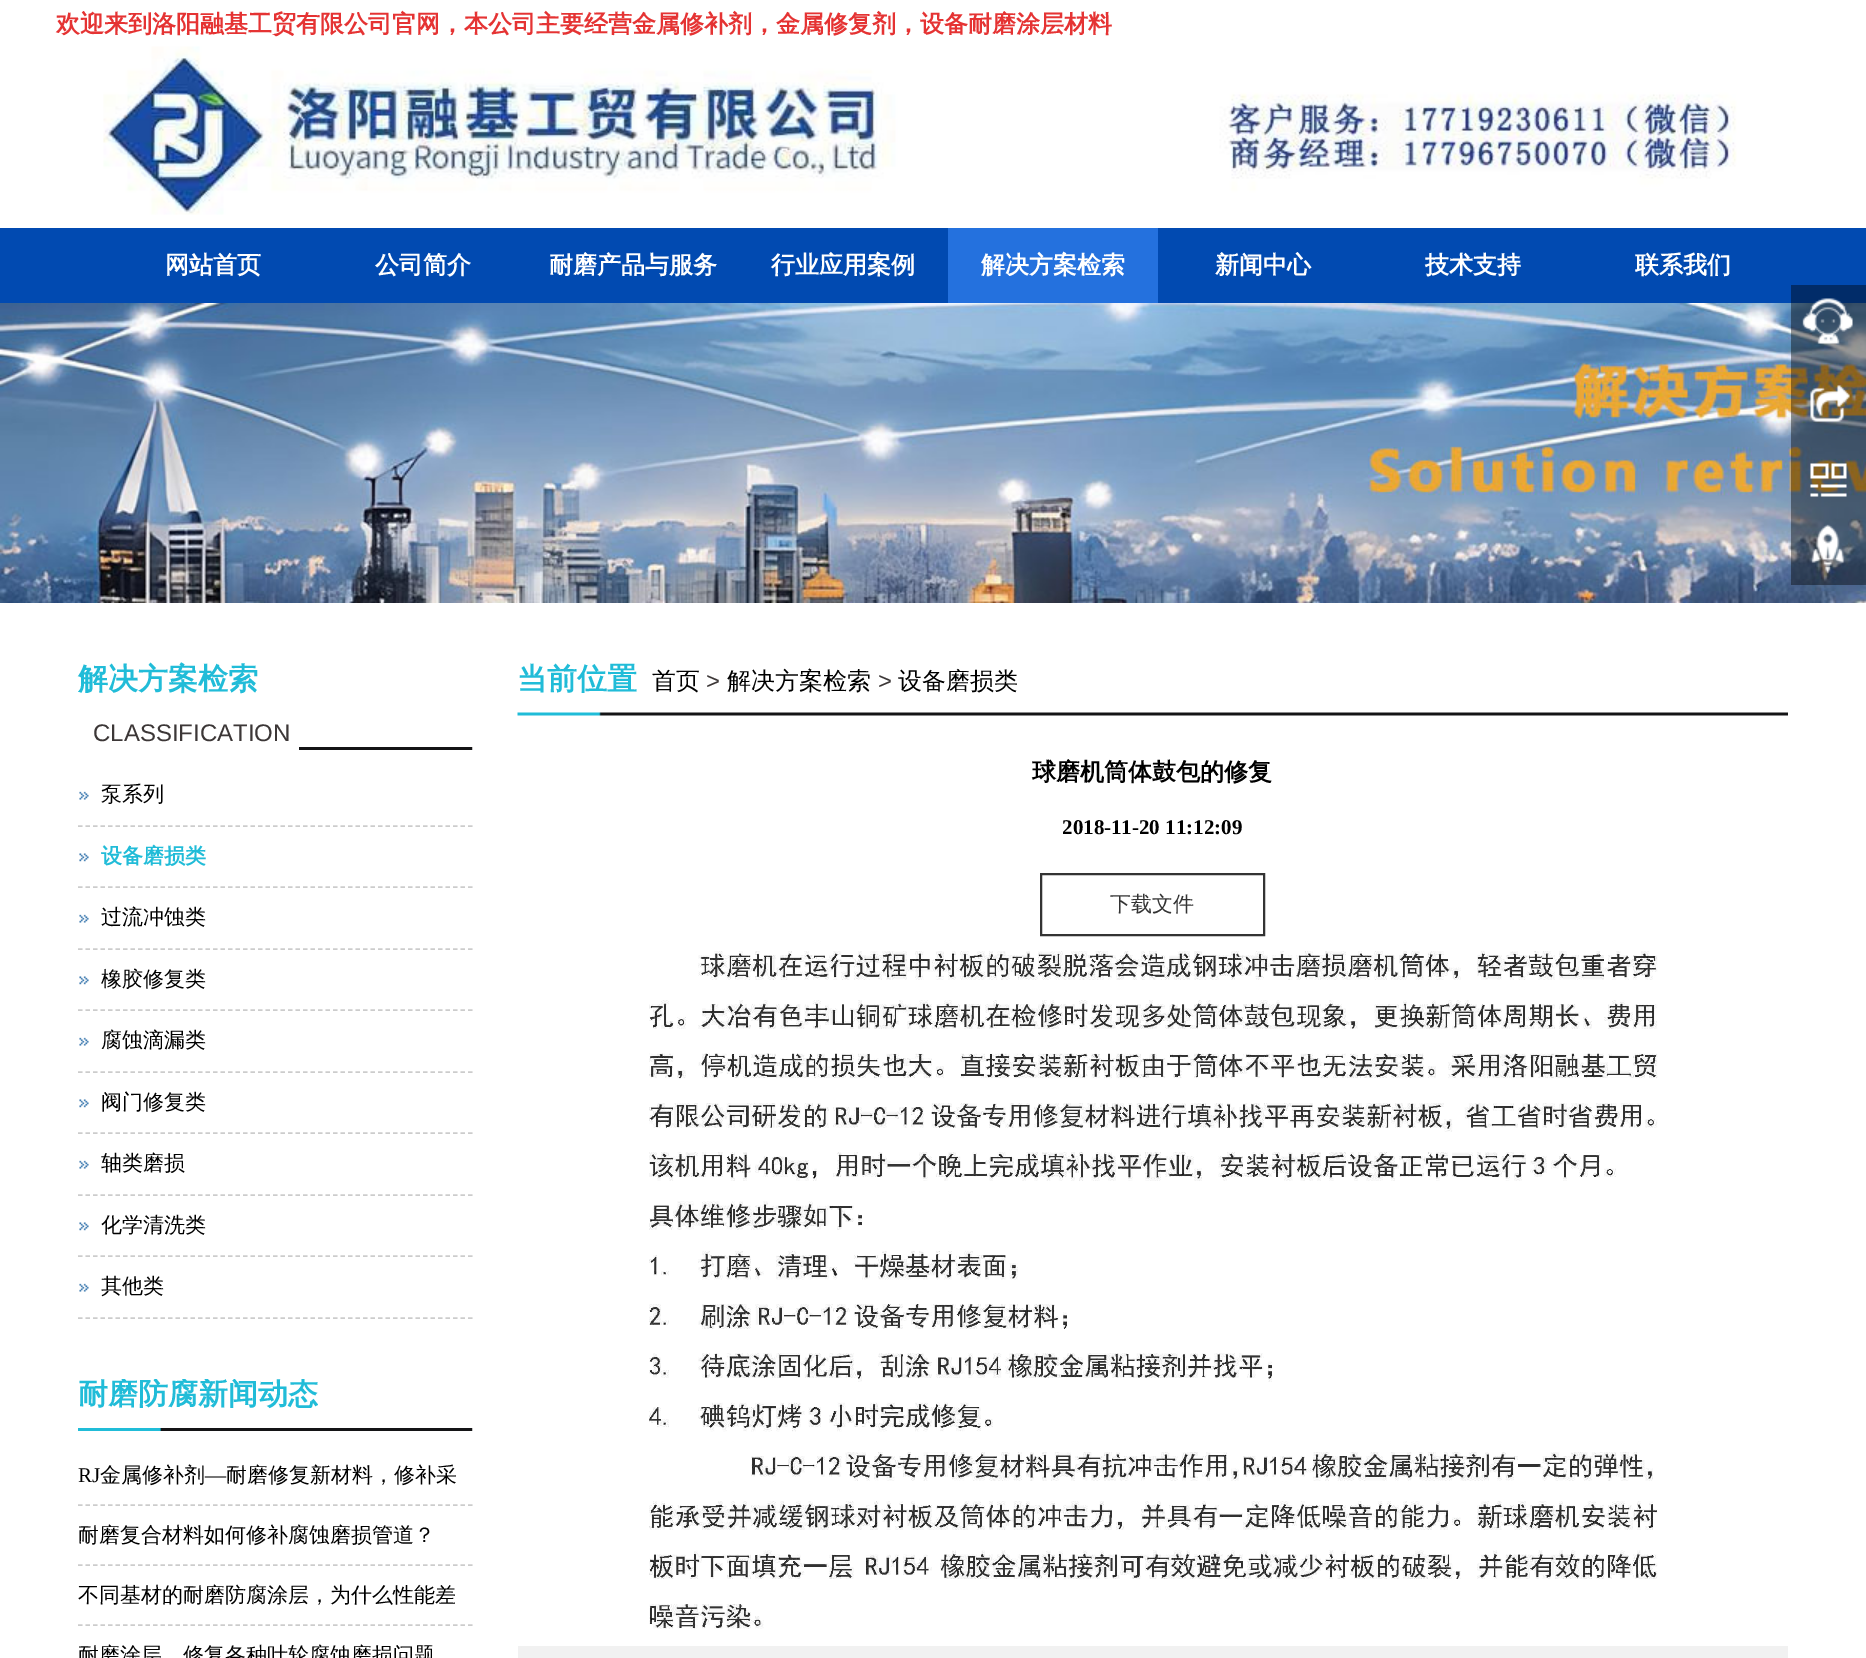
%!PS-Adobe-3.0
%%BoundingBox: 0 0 1866 1658
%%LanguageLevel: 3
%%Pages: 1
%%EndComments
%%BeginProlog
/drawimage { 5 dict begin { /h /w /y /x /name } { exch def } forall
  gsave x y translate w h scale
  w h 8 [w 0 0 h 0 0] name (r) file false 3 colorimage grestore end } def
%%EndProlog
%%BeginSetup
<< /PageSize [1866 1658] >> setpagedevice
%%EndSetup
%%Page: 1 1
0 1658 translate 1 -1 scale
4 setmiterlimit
1 setgray
0 0 1866 1658 rectfill
(images/1.raw) 103 46 1634 169 drawimage
0.004 0.29 0.694 setrgbcolor
0 228 1866 75 rectfill
0.141 0.443 0.871 setrgbcolor
948 228 210 75 rectfill
(images/3.raw) 0 303 1866 300 drawimage
(images/2.raw) 1791 285 75 300 drawimage
(images/4.raw) 299 747 174 3 drawimage
(images/5.raw) 79 791 10 9 drawimage
0.8 setgray
1.5 setlinewidth
[4.5 3] 0 setdash
newpath 78 826 moveto 472.5 826 lineto stroke
(images/6.raw) 79 853 10 9 drawimage
newpath 78 887 moveto 472.5 887 lineto stroke
(images/5.raw) 79 914 10 9 drawimage
newpath 78 949 moveto 472.5 949 lineto stroke
(images/6.raw) 79 976 10 9 drawimage
newpath 78 1010 moveto 472.5 1010 lineto stroke
(images/5.raw) 79 1037 10 9 drawimage
newpath 78 1072 moveto 472.5 1072 lineto stroke
(images/6.raw) 79 1099 10 9 drawimage
newpath 78 1133 moveto 472.5 1133 lineto stroke
(images/5.raw) 79 1160 10 9 drawimage
newpath 78 1195 moveto 472.5 1195 lineto stroke
(images/6.raw) 79 1222 10 9 drawimage
newpath 78 1256 moveto 472.5 1256 lineto stroke
(images/5.raw) 79 1283 10 9 drawimage
newpath 78 1318 moveto 472.5 1318 lineto stroke
(images/7.raw) 78 1428 395 3 drawimage
newpath 78 1505 moveto 472.5 1505 lineto stroke
newpath 78 1565 moveto 472.5 1565 lineto stroke
newpath 78 1625 moveto 472.5 1625 lineto stroke
(images/8.raw) 517 712 1271 4 drawimage
0.2 setgray
2 setlinewidth
[] 0 setdash
1041 874 223 61 rectstroke
(images/9.raw) 649 951 1009 678 drawimage
0.945 setgray
518 1646 1270 12 rectfill
/WenQuanYiZenHei-Bold [24 0 0 -24 0 0] selectfont
0.898 0.2 0.2 setrgbcolor
56 32 moveto (欢迎来到洛阳融基工贸有限公司官网，本公司主要经营金属修补剂，金属修复剂，设备耐磨涂层材料) show
1 setgray
165 273 moveto (网站首页) show
375 273 moveto (公司简介) show
549 273 moveto (耐磨产品与服务) show
771 273 moveto (行业应用案例) show
981 273 moveto (解决方案检索) show
1215 273 moveto (新闻中心) show
1425 273 moveto (技术支持) show
1635 273 moveto (联系我们) show
/WenQuanYiZenHei-Bold [30 0 0 -30 0 0] selectfont
0.129 0.737 0.847 setrgbcolor
78 689 moveto (解决方案检索) show
/LiberationSans-Regular [24 0 0 -24 0 0] selectfont
0.235 0.216 0.216 setrgbcolor
93 741 moveto (CLASSIFICATION) show
/WenQuanYiZenHei-Medium [21 0 0 -21 0 0] selectfont
0 setgray
101 801 moveto (泵系列) show
/WenQuanYiZenHei-Bold [21 0 0 -21 0 0] selectfont
0.129 0.737 0.847 setrgbcolor
101 863 moveto (设备磨损类) show
/WenQuanYiZenHei-Medium [21 0 0 -21 0 0] selectfont
0 setgray
101 924 moveto (过流冲蚀类) show
101 986 moveto (橡胶修复类) show
101 1047 moveto (腐蚀滴漏类) show
101 1109 moveto (阀门修复类) show
101 1170 moveto (轴类磨损) show
101 1232 moveto (化学清洗类) show
101 1293 moveto (其他类) show
gsave
78 1379 240 52 rectclip
/WenQuanYiZenHei-Bold [30 0 0 -30 0 0] selectfont
0.129 0.737 0.847 setrgbcolor
78 1404 moveto (耐磨防腐新闻动态) show
grestore
/LiberationSerif-Regular [21 0 0 -21 0 0] selectfont
78 1482 moveto (RJ) show
/WenQuanYiZenHei-Medium [21 0 0 -21 0 0] selectfont
100 1482 moveto (金属修补剂) show
/LiberationSerif-Regular [21 0 0 -21 0 0] selectfont
205 1482 moveto (—) show
/WenQuanYiZenHei-Medium [21 0 0 -21 0 0] selectfont
226 1482 moveto (耐磨修复新材料，修补采) show
78 1542 moveto (耐磨复合材料如何修补腐蚀磨损管道？) show
78 1602 moveto (不同基材的耐磨防腐涂层，为什么性能差) show
78 1662 moveto (耐磨涂层，修复各种叶轮腐蚀磨损问题) show
/WenQuanYiZenHei-Bold [30 0 0 -30 0 0] selectfont
0.129 0.737 0.847 setrgbcolor
517 689 moveto (当前位置) show
/WenQuanYiZenHei-Medium [24 0 0 -24 0 0] selectfont
0 setgray
652 689 moveto (首页) show
/LiberationSans-Regular [24 0 0 -24 0 0] selectfont
0.235 0.216 0.216 setrgbcolor
706 689 moveto (>) show
/WenQuanYiZenHei-Medium [24 0 0 -24 0 0] selectfont
0 setgray
727 689 moveto (解决方案检索) show
/LiberationSans-Regular [24 0 0 -24 0 0] selectfont
0.235 0.216 0.216 setrgbcolor
878 689 moveto (>) show
/WenQuanYiZenHei-Medium [24 0 0 -24 0 0] selectfont
0 setgray
898 689 moveto (设备磨损类) show
/WenQuanYiZenHei-Bold [24 0 0 -24 0 0] selectfont
1032 780 moveto (球磨机筒体鼓包的修复) show
/LiberationSerif-Bold [21 0 0 -21 0 0] selectfont
1062 834 moveto (2018-11-20 11:12:09) show
/WenQuanYiZenHei-Medium [21 0 0 -21 0 0] selectfont
0.2 setgray
1110 911 moveto (下载文件) show
showpage
%%EOF
